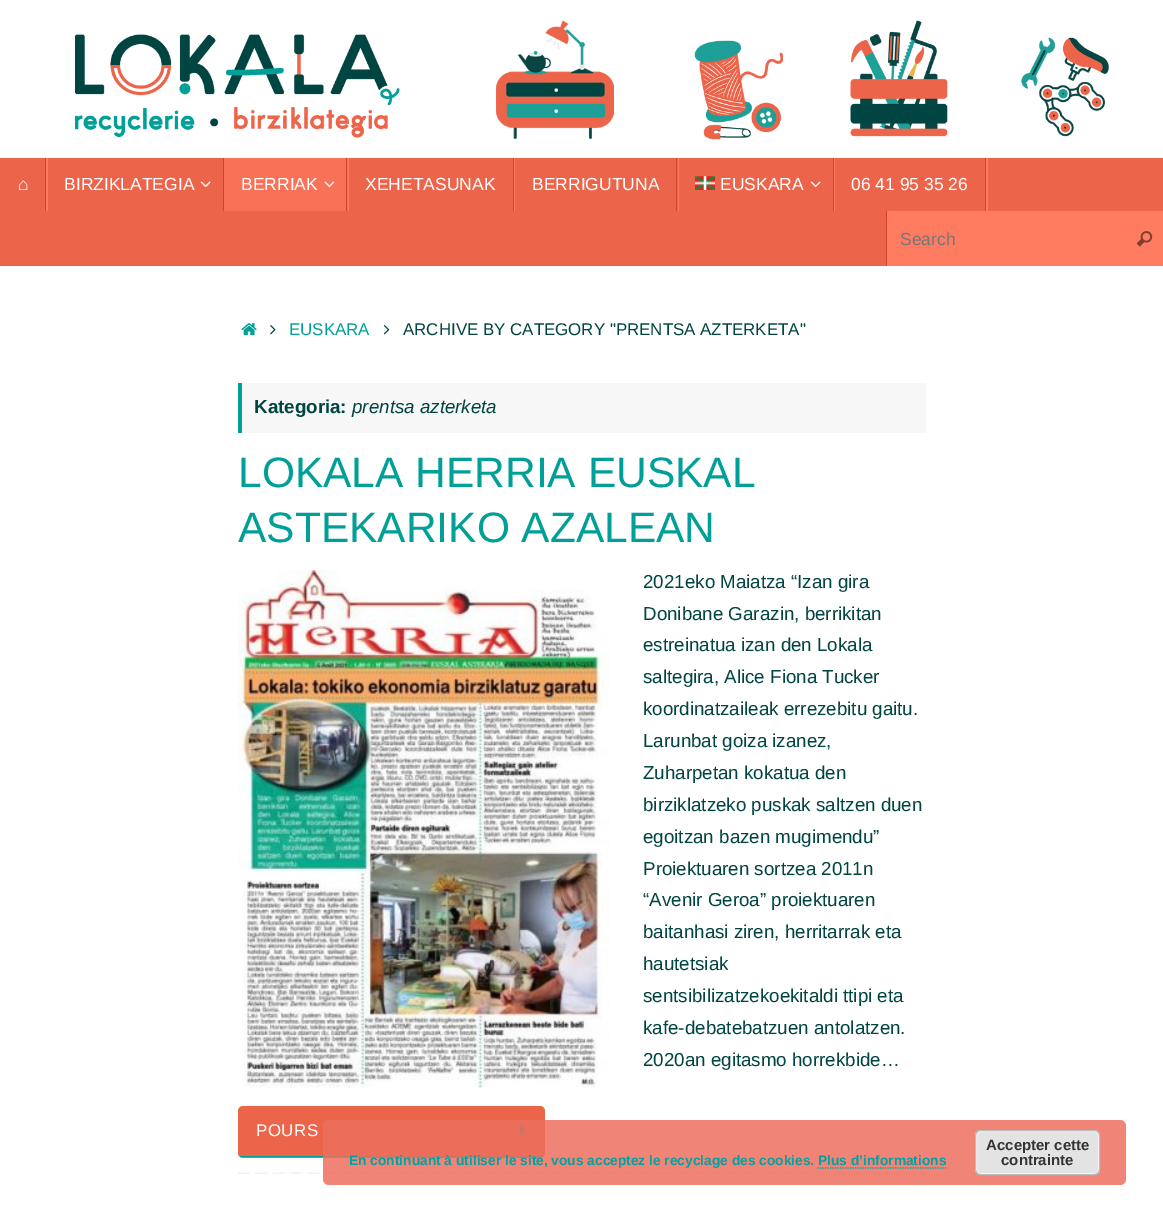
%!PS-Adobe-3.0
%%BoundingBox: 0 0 1163 1222
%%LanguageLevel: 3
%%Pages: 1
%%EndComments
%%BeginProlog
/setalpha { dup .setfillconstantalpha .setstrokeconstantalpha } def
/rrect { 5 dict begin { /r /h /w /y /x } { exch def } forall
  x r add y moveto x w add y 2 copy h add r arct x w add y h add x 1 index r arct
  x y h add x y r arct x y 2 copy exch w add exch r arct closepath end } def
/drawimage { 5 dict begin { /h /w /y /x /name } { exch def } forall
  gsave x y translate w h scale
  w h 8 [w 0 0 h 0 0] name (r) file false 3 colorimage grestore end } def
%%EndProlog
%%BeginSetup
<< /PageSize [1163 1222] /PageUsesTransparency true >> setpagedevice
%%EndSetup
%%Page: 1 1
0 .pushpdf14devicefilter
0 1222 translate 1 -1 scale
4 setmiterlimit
1 setgray
0 0 1163 1222 rectfill
(images/1.raw) 75 20 1034 120 drawimage
0.925 0.392 0.286 setrgbcolor
0 158 1163 108 rectfill
1 0.486 0.38 setrgbcolor
46 158 2 53 rectfill
0.808 0.275 0.169 setrgbcolor
45 158 1 53 rectfill
223 158 1 53 rectfill
(images/2.raw) 200 181 11 7 drawimage
0.976 0.443 0.337 setrgbcolor
224 158 124 53 rectfill
1 0.486 0.38 setrgbcolor
348 158 1 53 rectfill
0.808 0.275 0.169 setrgbcolor
346 158 1 53 rectfill
(images/3.raw) 324 181 11 7 drawimage
1 0.486 0.38 setrgbcolor
514 158 1 53 rectfill
0.808 0.275 0.169 setrgbcolor
513 158 1 53 rectfill
1 0.486 0.38 setrgbcolor
678 158 1 53 rectfill
0.808 0.275 0.169 setrgbcolor
676 158 1 53 rectfill
1 0.486 0.38 setrgbcolor
834 158 1 53 rectfill
0.808 0.275 0.169 setrgbcolor
833 158 1 53 rectfill
(images/4.raw) 695 176 20 14 drawimage
(images/2.raw) 810 181 11 7 drawimage
1 0.486 0.38 setrgbcolor
986 158 2 53 rectfill
0.808 0.275 0.169 setrgbcolor
985 158 1 53 rectfill
1 0.486 0.38 setrgbcolor
887 211 276 55 rectfill
0.808 0.275 0.169 setrgbcolor
886 211 1 55 rectfill
(images/5.raw) 1136 231 17 16 drawimage
(images/6.raw) 241 323 16 13 drawimage
(images/7.raw) 270 325 6 10 drawimage
(images/8.raw) 383 325 7 10 drawimage
0.969 setgray
242 383 684 50 rectfill
0 0.624 0.592 setrgbcolor
238 383 4 50 rectfill
(images/9.raw) 238 570 372 518 drawimage
0.925 0.392 0.286 setrgbcolor
238 1106 307 52 5 rrect fill
0 0.624 0.592 setrgbcolor
240 1156 303 1 rectfill
(images/10.raw) 520 1125 6 11 drawimage
(images/11.raw) 238 1172 688 2 drawimage
0.85 setalpha
0.929 0.431 0.369 setrgbcolor
323 1120 803 65 6 rrect fill
1 setalpha
0.89 setgray
975 1130 125 45 6 rrect fill
0.965 setgray
976.5 1131.5 122 42 4.5 rrect stroke
0.733 setgray
975.5 1130.5 124 44 5.5 rrect stroke
0 0.635 0.635 setrgbcolor
1.2 setlinewidth
[1.25 1.25] 0 setdash
newpath 817.5 1168 moveto 946 1168 lineto stroke
/LiberationSans-Regular [17.5 0 0 -17.5 0 0] selectfont
1 setgray
18 190 moveto (⌂) show
64 190 moveto (BIRZIKLATEGIA) show
241 190 moveto (BERRIAK) show
365 190 moveto (XEHETASUNAK) show
532 190 moveto (BERRIGUTUNA) show
720 190 moveto (EUSKARA) show
851 190 moveto (06 41 95 35 26) show
0.459 setgray
900 245 moveto (Search) show
/LiberationSans-Regular [16.9 0 0 -16.9 0 0] selectfont
0 0.624 0.592 setrgbcolor
289 335 moveto (EUSKARA) show
0 0.271 0.255 setrgbcolor
403 335 moveto (ARCHIVE BY CATEGORY "PRENTSA AZTERKETA") show
/LiberationSans-Bold [18.75 0 0 -18.75 0 0] selectfont
254 413 moveto (Kategoria:) show
/LiberationSans-Italic [18.75 0 0 -18.75 0 0] selectfont
352 413 moveto (prentsa azterketa) show
/LiberationSans-Regular [42.5 0 0 -42.5 0 0] selectfont
0 0.624 0.592 setrgbcolor
238 487 moveto (LOKALA HERRIA EUSKAL) show
238 542 moveto (ASTEKARIKO AZALEAN) show
/LiberationSans-Regular [18.75 0 0 -18.75 0 0] selectfont
0 0.271 0.255 setrgbcolor
643 588 moveto (2021eko Maiatza “Izan gira) show
643 620 moveto (Donibane Garazin, berrikitan) show
643 651 moveto (estreinatua izan den Lokala) show
643 683 moveto (saltegira, Alice Fiona Tucker) show
643 715 moveto (koordinatzaileak errezebitu gaitu.) show
643 747 moveto (Larunbat goiza izanez,) show
643 779 moveto (Zuharpetan kokatua den) show
643 811 moveto (birziklatzeko puskak saltzen duen) show
643 843 moveto (egoitzan bazen mugimendu”) show
643 875 moveto (Proiektuaren sortzea 2011n) show
643 906 moveto (“Avenir Geroa” proiektuaren) show
643 938 moveto (baitanhasi ziren, herritarrak eta) show
643 970 moveto (hautetsiak) show
643 1002 moveto (sentsibilizatzekoekitaldi ttipi eta) show
643 1034 moveto (kafe-debatebatzuen antolatzen.) show
643 1066 moveto (2020an egitasmo horrekbide…) show
/LiberationSans-Regular [16.9 0 0 -16.9 0 0] selectfont
1 setgray
256 1136 moveto 0.5 0 (POURS) ashow
/LiberationSans-Bold [13.75 0 0 -13.75 0 0] selectfont
0 0.635 0.635 setrgbcolor
349 1165 moveto (En continuant à utiliser le site, vous acceptez le recyclage des cookies. Plus d’informations) show
/LiberationSans-Bold [15 0 0 -15 0 0] selectfont
0.2 setgray
986 1150 moveto (Accepter cette) show
1001 1165 moveto (contrainte) show
.poppdf14devicefilter showpage
%%EOF
